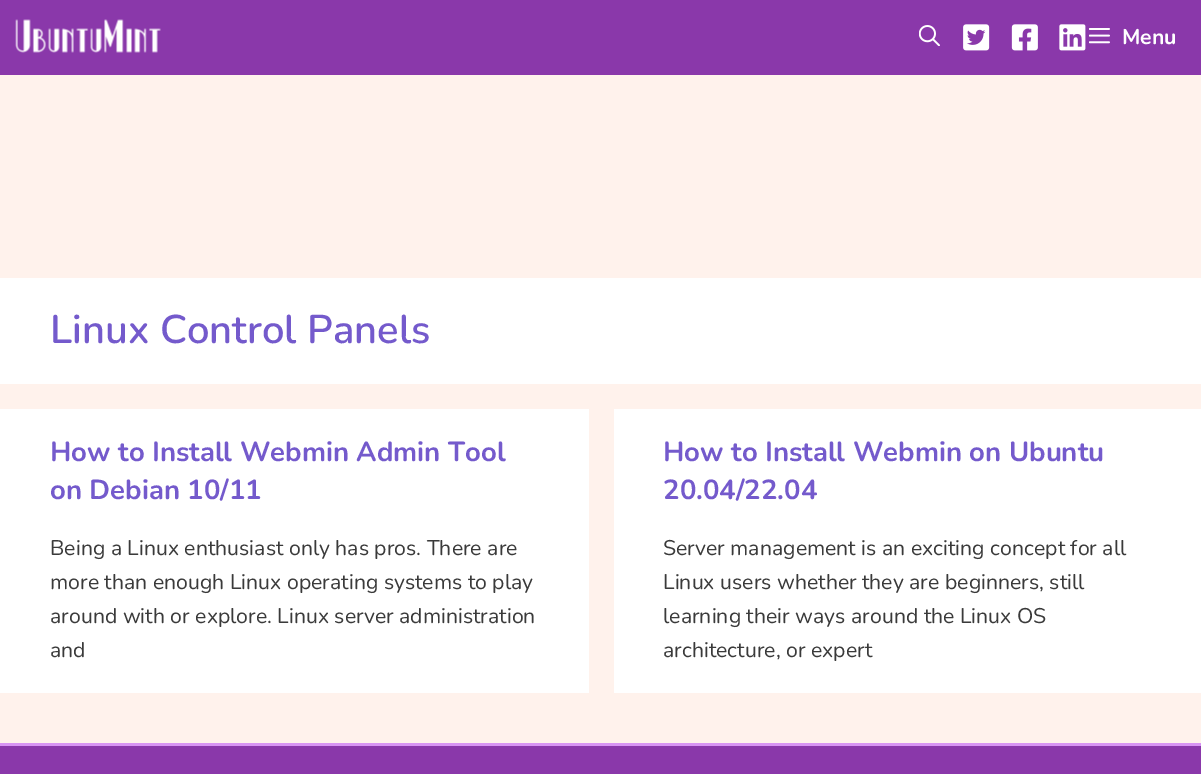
%!PS-Adobe-3.0
%%BoundingBox: 0 0 1201 774
%%LanguageLevel: 3
%%Pages: 1
%%EndComments
%%BeginProlog
/drawimage { 5 dict begin { /h /w /y /x /name } { exch def } forall
  gsave x y translate w h scale
  w h 8 [w 0 0 h 0 0] name (r) file false 3 colorimage grestore end } def
%%EndProlog
%%BeginSetup
<< /PageSize [1201 774] >> setpagedevice
%%EndSetup
%%Page: 1 1
0 774 translate 1 -1 scale
4 setmiterlimit
1 0.949 0.925 setrgbcolor
0 0 1201 774 rectfill
0.541 0.22 0.667 setrgbcolor
0 0 1201 75 rectfill
(images/1.raw) 15 19 146 34 drawimage
(images/2.raw) 919 25 21 21 drawimage
(images/3.raw) 963 24 27 27 drawimage
(images/4.raw) 1011 24 27 27 drawimage
(images/5.raw) 1059 24 27 27 drawimage
(images/6.raw) 1089 28 21 16 drawimage
1 setgray
0 278 1201 106 rectfill
0 409 589 284 rectfill
614 409 587 284 rectfill
0.847 0.58 0.953 setrgbcolor
0 743 1201 3 rectfill
0.541 0.22 0.667 setrgbcolor
0 746 1201 28 rectfill
/Nunito-Bold [21.25 0 0 -21.25 0 0] selectfont
1 setgray
1122 44 moveto (Menu) show
/Nunito-SemiBold [40 0 0 -40 0 0] selectfont
0.455 0.353 0.8 setrgbcolor
50 343 moveto (Linux Control Panels) show
/Nunito-Bold [27.5 0 0 -27.5 0 0] selectfont
50 461 moveto (How to Install Webmin Admin Tool) show
50 499 moveto (on Debian 10/11) show
/Nunito-Regular [21.25 0 0 -21.25 0 0] selectfont
0.227 setgray
50 555 moveto (Being a Linux enthusiast only has pros. There are) show
50 589 moveto (more than enough Linux operating systems to play) show
50 623 moveto (around with or explore. Linux server administration) show
50 657 moveto (and) show
/Nunito-Bold [27.5 0 0 -27.5 0 0] selectfont
0.455 0.353 0.8 setrgbcolor
663 461 moveto (How to Install Webmin on Ubuntu) show
663 499 moveto (20.04/22.04) show
/Nunito-Regular [21.25 0 0 -21.25 0 0] selectfont
0.227 setgray
663 555 moveto (Server management is an exciting concept for all) show
663 589 moveto (Linux users whether they are beginners, still) show
663 623 moveto (learning their ways around the Linux OS) show
663 657 moveto (architecture, or expert) show
showpage
%%EOF
